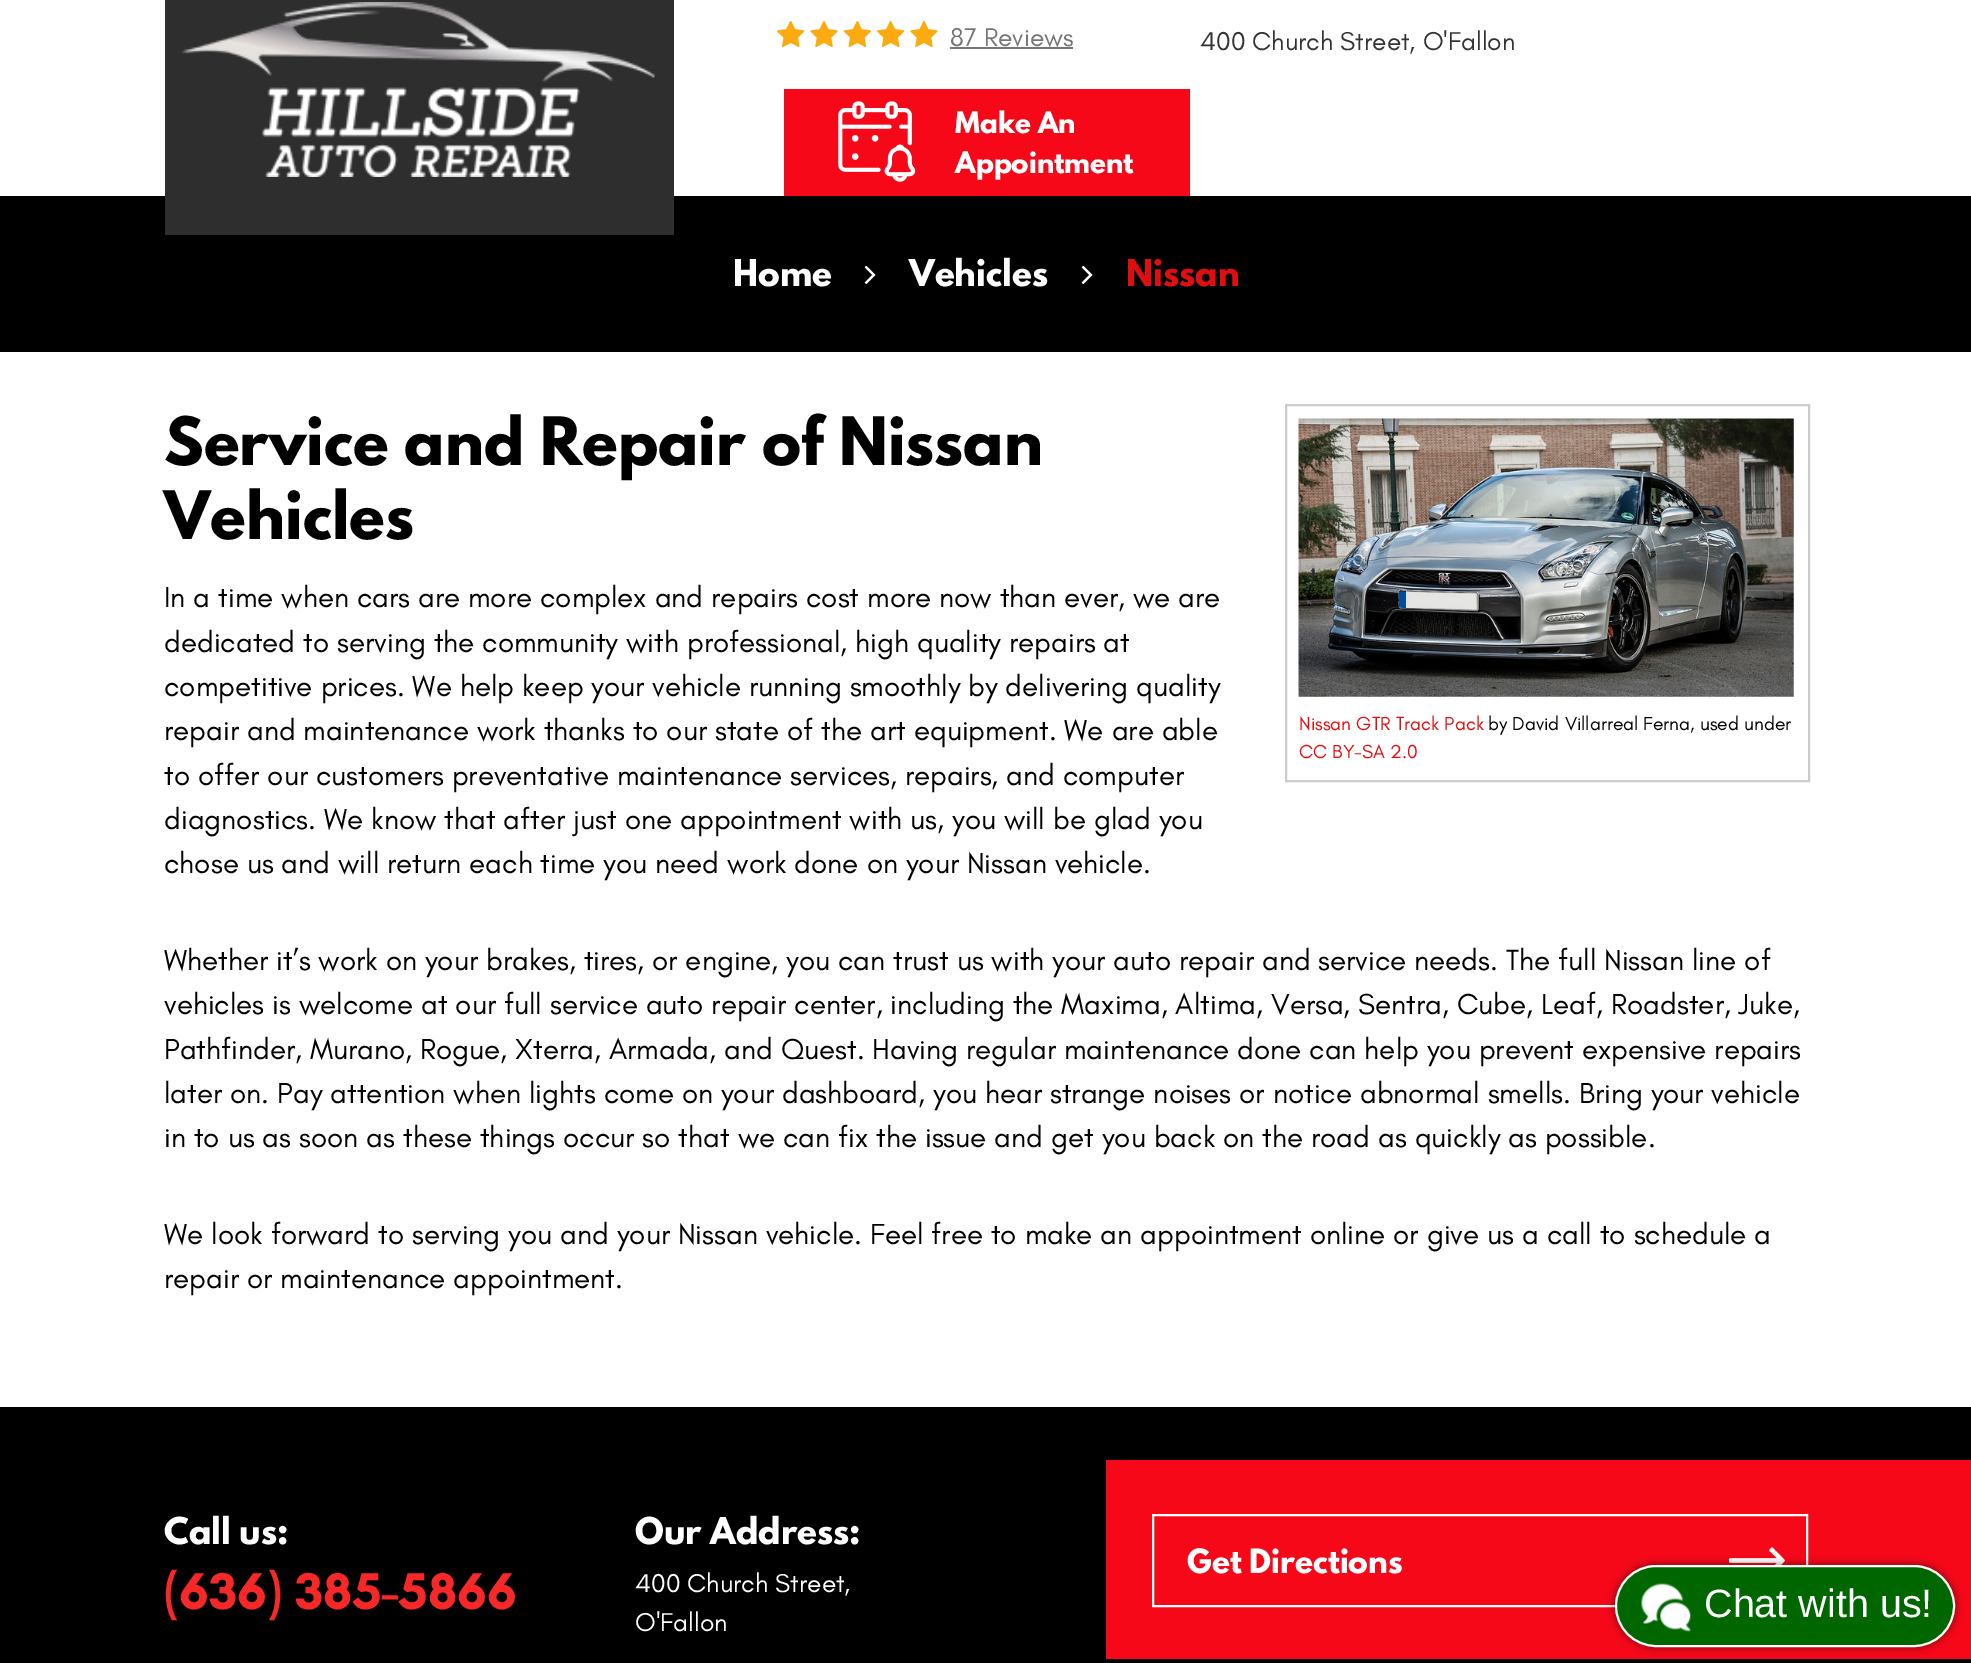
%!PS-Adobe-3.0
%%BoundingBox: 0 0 1971 1663
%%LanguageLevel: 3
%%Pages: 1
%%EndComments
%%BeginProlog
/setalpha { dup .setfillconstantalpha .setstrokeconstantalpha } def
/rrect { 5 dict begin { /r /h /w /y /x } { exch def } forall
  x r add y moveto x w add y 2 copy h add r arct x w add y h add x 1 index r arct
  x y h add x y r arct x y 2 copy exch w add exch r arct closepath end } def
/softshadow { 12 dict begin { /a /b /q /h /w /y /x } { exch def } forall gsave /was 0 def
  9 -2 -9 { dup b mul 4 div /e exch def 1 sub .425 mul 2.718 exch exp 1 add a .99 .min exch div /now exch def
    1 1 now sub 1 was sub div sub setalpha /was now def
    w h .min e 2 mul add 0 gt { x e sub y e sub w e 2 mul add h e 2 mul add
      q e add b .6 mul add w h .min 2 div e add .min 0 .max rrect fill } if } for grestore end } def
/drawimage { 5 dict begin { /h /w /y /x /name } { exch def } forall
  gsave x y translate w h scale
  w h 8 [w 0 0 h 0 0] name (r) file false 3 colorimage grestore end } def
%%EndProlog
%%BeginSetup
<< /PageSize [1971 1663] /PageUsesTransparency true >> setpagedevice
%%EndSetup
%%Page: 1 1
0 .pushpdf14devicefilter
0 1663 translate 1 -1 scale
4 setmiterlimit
1 setgray
0 0 1971 1663 rectfill
0.004 0 0 setrgbcolor
0 196 1971 156 rectfill
0.18 setgray
165 0 509 235 rectfill
(images/1.raw) 182 2 473 175 drawimage
(images/2.raw) 777 21 161 27 drawimage
0.459 setgray
950 47 123 2 rectfill
0.969 0.031 0.098 setrgbcolor
784 89 406 107 rectfill
(images/3.raw) 838 101 78 81 drawimage
(images/4.raw) 864 265 12 19 drawimage
(images/4.raw) 1081 265 12 19 drawimage
0.8 setgray
2 setlinewidth
1286 405 523 376 rectstroke
(images/5.raw) 1298 418 496 279 drawimage
0.004 0 0 setrgbcolor
0 1407 1971 256 rectfill
0.969 0.031 0.098 setrgbcolor
1106 1460 865 199 rectfill
1 setgray
1153 1515 654 91 rectstroke
(images/6.raw) 1728 1547 57 18 drawimage
0 setgray
1615 1565 340 82 41 4.5 0.5 softshadow
0 0.4 0 setrgbcolor
1616 1566 338 80 40 rrect gsave fill grestore
1 setgray
stroke
(images/7.raw) 1641 1583 50 49 drawimage
/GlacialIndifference-Regular [26.25 0 0 -26.25 0 0] selectfont
0.459 setgray
950 46 moveto (87 Reviews) show
0.2 setgray
1200 50 moveto (400 Church Street, O'Fallon) show
/LeagueSpartan-Bold [26.25 0 0 -26.25 0 0] selectfont
1 setgray
955 133 moveto (Make An) show
955 173 moveto (Appointment) show
/LeagueSpartan-Bold [32.75 0 0 -32.75 0 0] selectfont
733 286 moveto (Home) show
909 286 moveto (Vehicles) show
0.878 0.055 0.059 setrgbcolor
1126 286 moveto (Nissan) show
/LeagueSpartan-Bold [59 0 0 -59 0 0] selectfont
0 setgray
164 465 moveto (Service and Repair of Nissan) show
164 539 moveto (Vehicles) show
/GlacialIndifference-Regular [29.53 0 0 -29.53 0 0] selectfont
164 607 moveto (In a time when cars are more complex and repairs cost more now than ever, we are) show
164 652 moveto (dedicated to serving the community with professional, high quality repairs at) show
164 696 moveto (competitive prices. We help keep your vehicle running smoothly by delivering quality) show
164 740 moveto (repair and maintenance work thanks to our state of the art equipment. We are able) show
164 785 moveto (to offer our customers preventative maintenance services, repairs, and computer) show
164 829 moveto (diagnostics. We know that after just one appointment with us, you will be glad you) show
164 873 moveto (chose us and will return each time you need work done on your Nissan vehicle.) show
/GlacialIndifference-Regular [19.25 0 0 -19.25 0 0] selectfont
0.878 0.055 0.059 setrgbcolor
1299 730 moveto (Nissan GTR Track Pack) show
0 setgray
1488 730 moveto (by David Villarreal Ferna, used under) show
0.878 0.055 0.059 setrgbcolor
1299 758 moveto (CC BY-SA 2.0) show
/GlacialIndifference-Regular [29.53 0 0 -29.53 0 0] selectfont
0 setgray
164 970 moveto (Whether it’s work on your brakes, tires, or engine, you can trust us with your auto repair and service needs. The full Nissan line of) show
164 1014 moveto (vehicles is welcome at our full service auto repair center, including the Maxima, Altima, Versa, Sentra, Cube, Leaf, Roadster, Juke,) show
164 1059 moveto (Pathfinder, Murano, Rogue, Xterra, Armada, and Quest. Having regular maintenance done can help you prevent expensive repairs) show
164 1103 moveto (later on. Pay attention when lights come on your dashboard, you hear strange noises or notice abnormal smells. Bring your vehicle) show
164 1147 moveto (in to us as soon as these things occur so that we can fix the issue and get you back on the road as quickly as possible.) show
164 1244 moveto (We look forward to serving you and your Nissan vehicle. Feel free to make an appointment online or give us a call to schedule a) show
164 1288 moveto (repair or maintenance appointment.) show
/LeagueSpartan-Bold [32.75 0 0 -32.75 0 0] selectfont
1 setgray
164 1544 moveto (Call us:) show
/GlacialIndifference-Bold [52.5 0 0 -52.5 0 0] selectfont
0.976 0.157 0.157 setrgbcolor
164 1609 moveto (\(636\) 385-5866) show
/LeagueSpartan-Bold [32.75 0 0 -32.75 0 0] selectfont
1 setgray
635 1544 moveto (Our Address:) show
/GlacialIndifference-Regular [26.25 0 0 -26.25 0 0] selectfont
635 1592 moveto (400 Church Street,) show
635 1631 moveto (O'Fallon) show
/LeagueSpartan-Bold [29.75 0 0 -29.75 0 0] selectfont
1187 1573 moveto (Get Directions) show
/LiberationSans-Regular [39.5 0 0 -39.5 0 0] selectfont
1704 1617 moveto (Chat with us!) show
.poppdf14devicefilter showpage
%%EOF
